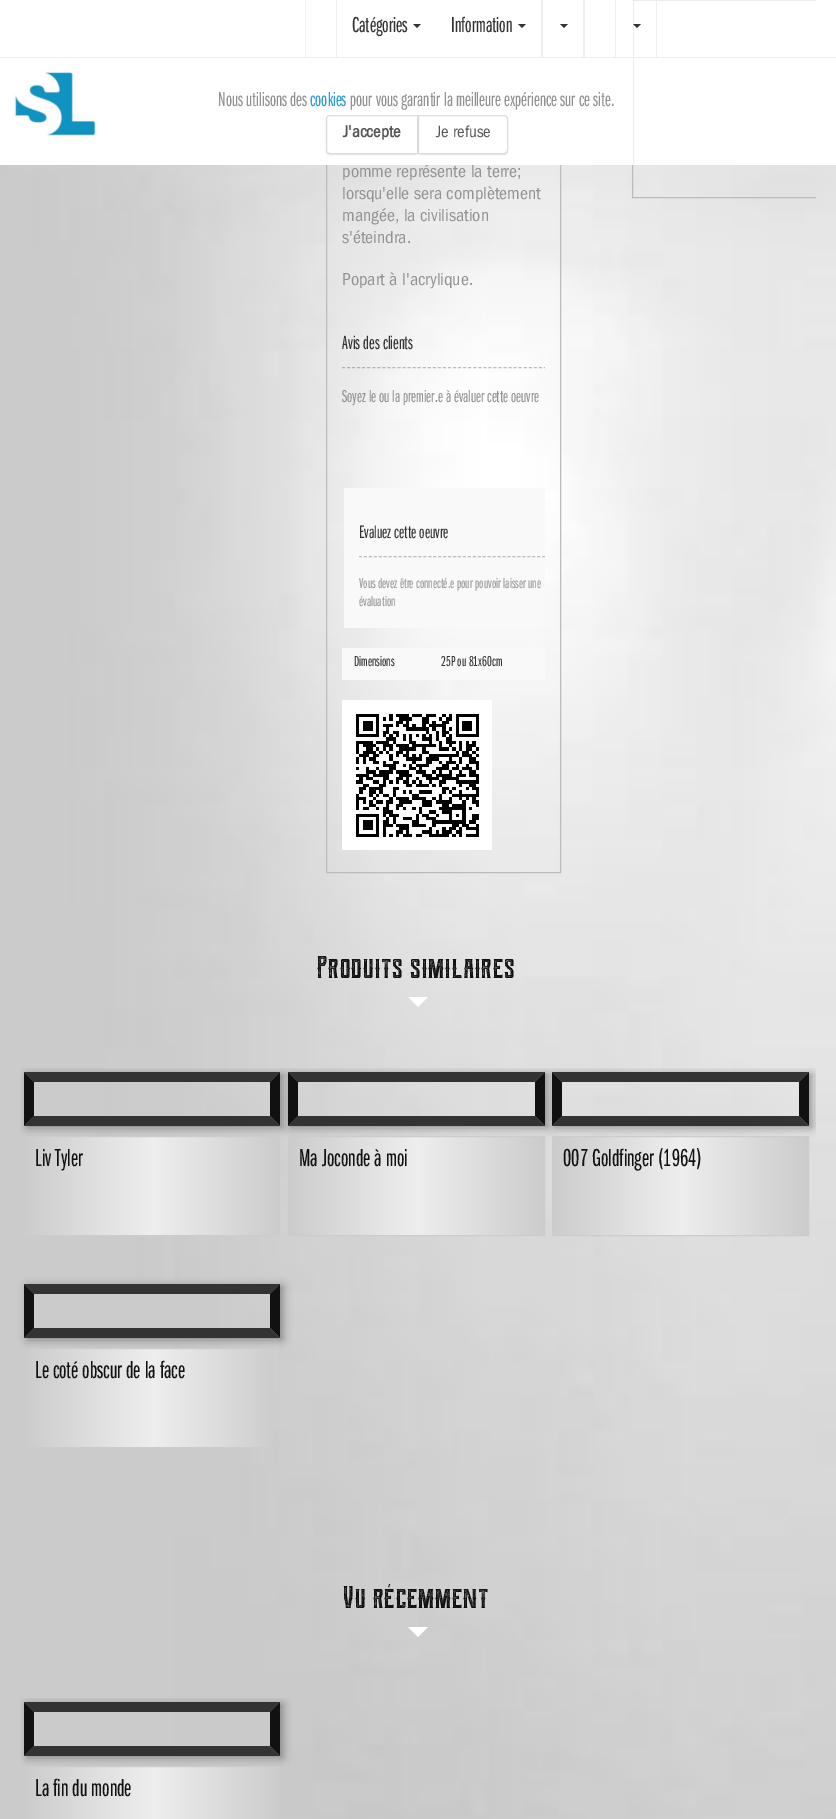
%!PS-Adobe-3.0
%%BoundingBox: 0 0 836 1819
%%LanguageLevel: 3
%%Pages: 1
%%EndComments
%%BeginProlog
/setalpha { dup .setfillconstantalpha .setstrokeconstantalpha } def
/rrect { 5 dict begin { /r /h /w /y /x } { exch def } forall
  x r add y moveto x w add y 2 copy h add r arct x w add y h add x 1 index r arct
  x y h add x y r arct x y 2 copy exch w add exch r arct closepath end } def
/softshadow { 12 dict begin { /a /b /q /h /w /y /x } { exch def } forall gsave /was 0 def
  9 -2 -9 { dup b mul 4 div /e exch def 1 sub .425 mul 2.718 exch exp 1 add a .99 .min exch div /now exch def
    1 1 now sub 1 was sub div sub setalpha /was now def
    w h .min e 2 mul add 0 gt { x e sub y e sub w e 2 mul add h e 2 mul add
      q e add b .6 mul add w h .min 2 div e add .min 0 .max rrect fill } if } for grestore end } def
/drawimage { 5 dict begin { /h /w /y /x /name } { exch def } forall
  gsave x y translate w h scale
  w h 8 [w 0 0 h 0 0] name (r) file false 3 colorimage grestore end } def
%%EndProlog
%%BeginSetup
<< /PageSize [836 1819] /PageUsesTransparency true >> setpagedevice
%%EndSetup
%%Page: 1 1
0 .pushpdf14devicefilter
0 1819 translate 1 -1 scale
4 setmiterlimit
1 setgray
0 0 836 1819 rectfill
(images/1.raw) 0 165 836 1654 drawimage
0.933 setgray
305 0 1 57 rectfill
gsave
20 0 796 893 rectclip
0.733 setgray
632.5 -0.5 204 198 rectstroke
grestore
656 0 1 57 rectfill
0.2 setgray
newpath 633 24 moveto 641 24 lineto 637 28 lineto closepath fill
(images/2.raw) 13 70 85 68 drawimage
0.733 setgray
326.5 -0.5 234 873 rectstroke
gsave
342 313 203 315 rectclip
0.25 setalpha
0 setgray
[3 2.05] 0 setdash
newpath 342 367.5 moveto 562 367.5 lineto stroke
grestore
0.976 setgray
344 488 201 140 rectfill
0.733 setgray
[3 1.95] 0 setdash
newpath 359 556.5 moveto 545 556.5 lineto stroke
0.976 setgray
342 648 203 32 rectfill
(images/3.raw) 342 700 150 150 drawimage
1 setgray
newpath 408 997 moveto 428 997 lineto 418 1007 lineto closepath fill
gsave
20 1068 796 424 rectclip
newpath 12 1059 moveto 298 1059 lineto 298 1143 lineto 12 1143 lineto closepath 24 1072 moveto 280 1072 lineto 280 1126 lineto 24 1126 lineto closepath eoclip newpath
0.196 setgray
27 1074 256 54 0 4.5 0.44 softshadow
grestore
0.2 setgray
newpath 24 1072 moveto 280 1072 lineto 270 1082 lineto 34 1082 lineto closepath fill
0.067 setgray
newpath 280 1072 moveto 280 1126 lineto 270 1116 lineto 270 1082 lineto closepath fill
0.2 setgray
newpath 280 1126 moveto 24 1126 lineto 34 1116 lineto 270 1116 lineto closepath fill
0.067 setgray
newpath 24 1126 moveto 24 1072 lineto 34 1082 lineto 34 1116 lineto closepath fill
gsave newpath 28 1137 moveto 279 1137 lineto 279 1235 lineto 28 1235 lineto closepath clip newpath
<< /ShadingType 2 /ColorSpace /DeviceRGB /Coords [25 1137 279 1137] /Extend [true true] /Function << /FunctionType 3 /Domain [0 1] /Functions [<< /FunctionType 2 /Domain [0 1] /C0 [0.8 0.8 0.8] /C1 [0.933 0.933 0.933] /N 1 >> << /FunctionType 2 /Domain [0 1] /C0 [0.933 0.933 0.933] /C1 [0.8 0.8 0.8] /N 1 >>] /Bounds [0.5] /Encode [0 1 0 1] >> >> shfill grestore
0.8 setgray
[] 0 setdash
24.5 1136.5 255 99 rectstroke
gsave
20 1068 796 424 rectclip
newpath 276 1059 moveto 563 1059 lineto 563 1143 lineto 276 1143 lineto closepath 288 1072 moveto 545 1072 lineto 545 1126 lineto 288 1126 lineto closepath eoclip newpath
0.196 setgray
291 1074 257 54 0 4.5 0.44 softshadow
grestore
0.2 setgray
newpath 288 1072 moveto 545 1072 lineto 535 1082 lineto 298 1082 lineto closepath fill
0.067 setgray
newpath 545 1072 moveto 545 1126 lineto 535 1116 lineto 535 1082 lineto closepath fill
0.2 setgray
newpath 545 1126 moveto 288 1126 lineto 298 1116 lineto 535 1116 lineto closepath fill
0.067 setgray
newpath 288 1126 moveto 288 1072 lineto 298 1082 lineto 298 1116 lineto closepath fill
gsave newpath 289 1137 moveto 544 1137 lineto 544 1235 lineto 289 1235 lineto closepath clip newpath
<< /ShadingType 2 /ColorSpace /DeviceRGB /Coords [289 1137 544 1137] /Extend [true true] /Function << /FunctionType 3 /Domain [0 1] /Functions [<< /FunctionType 2 /Domain [0 1] /C0 [0.8 0.8 0.8] /C1 [0.933 0.933 0.933] /N 1 >> << /FunctionType 2 /Domain [0 1] /C0 [0.933 0.933 0.933] /C1 [0.8 0.8 0.8] /N 1 >>] /Bounds [0.5] /Encode [0 1 0 1] >> >> shfill grestore
0.8 setgray
288.5 1136.5 256 99 rectstroke
gsave
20 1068 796 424 rectclip
newpath 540 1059 moveto 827 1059 lineto 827 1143 lineto 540 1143 lineto closepath 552 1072 moveto 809 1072 lineto 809 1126 lineto 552 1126 lineto closepath eoclip newpath
0.196 setgray
555 1074 257 54 0 4.5 0.44 softshadow
grestore
0.2 setgray
newpath 552 1072 moveto 809 1072 lineto 799 1082 lineto 562 1082 lineto closepath fill
0.067 setgray
newpath 809 1072 moveto 809 1126 lineto 799 1116 lineto 799 1082 lineto closepath fill
0.2 setgray
newpath 809 1126 moveto 552 1126 lineto 562 1116 lineto 799 1116 lineto closepath fill
0.067 setgray
newpath 552 1126 moveto 552 1072 lineto 562 1082 lineto 562 1116 lineto closepath fill
gsave newpath 553 1137 moveto 808 1137 lineto 808 1235 lineto 553 1235 lineto closepath clip newpath
<< /ShadingType 2 /ColorSpace /DeviceRGB /Coords [553 1137 808 1137] /Extend [true true] /Function << /FunctionType 3 /Domain [0 1] /Functions [<< /FunctionType 2 /Domain [0 1] /C0 [0.8 0.8 0.8] /C1 [0.933 0.933 0.933] /N 1 >> << /FunctionType 2 /Domain [0 1] /C0 [0.933 0.933 0.933] /C1 [0.8 0.8 0.8] /N 1 >>] /Bounds [0.5] /Encode [0 1 0 1] >> >> shfill grestore
0.8 setgray
552.5 1136.5 256 99 rectstroke
gsave
newpath 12 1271 moveto 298 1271 lineto 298 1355 lineto 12 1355 lineto closepath 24 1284 moveto 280 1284 lineto 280 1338 lineto 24 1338 lineto closepath eoclip newpath
0.196 setgray
27 1286 256 54 0 4.5 0.44 softshadow
grestore
0.2 setgray
newpath 24 1284 moveto 280 1284 lineto 270 1294 lineto 34 1294 lineto closepath fill
0.067 setgray
newpath 280 1284 moveto 280 1338 lineto 270 1328 lineto 270 1294 lineto closepath fill
0.2 setgray
newpath 280 1338 moveto 24 1338 lineto 34 1328 lineto 270 1328 lineto closepath fill
0.067 setgray
newpath 24 1338 moveto 24 1284 lineto 34 1294 lineto 34 1328 lineto closepath fill
gsave newpath 28 1349 moveto 270 1349 lineto 270 1447 lineto 28 1447 lineto closepath clip newpath
<< /ShadingType 2 /ColorSpace /DeviceRGB /Coords [25 1349 279 1349] /Extend [true true] /Function << /FunctionType 3 /Domain [0 1] /Functions [<< /FunctionType 2 /Domain [0 1] /C0 [0.8 0.8 0.8] /C1 [0.933 0.933 0.933] /N 1 >> << /FunctionType 2 /Domain [0 1] /C0 [0.933 0.933 0.933] /C1 [0.8 0.8 0.8] /N 1 >>] /Bounds [0.5] /Encode [0 1 0 1] >> >> shfill grestore
0.8 setgray
24.5 1348.5 255 99 rectstroke
1 setgray
newpath 408 1627 moveto 428 1627 lineto 418 1637 lineto closepath fill
gsave
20 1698 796 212 rectclip
newpath 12 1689 moveto 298 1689 lineto 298 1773 lineto 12 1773 lineto closepath 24 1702 moveto 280 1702 lineto 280 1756 lineto 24 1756 lineto closepath eoclip newpath
0.196 setgray
27 1704 256 54 0 4.5 0.44 softshadow
grestore
0.2 setgray
newpath 24 1702 moveto 280 1702 lineto 270 1712 lineto 34 1712 lineto closepath fill
0.067 setgray
newpath 280 1702 moveto 280 1756 lineto 270 1746 lineto 270 1712 lineto closepath fill
0.2 setgray
newpath 280 1756 moveto 24 1756 lineto 34 1746 lineto 270 1746 lineto closepath fill
0.067 setgray
newpath 24 1756 moveto 24 1702 lineto 34 1712 lineto 34 1746 lineto closepath fill
gsave newpath 28 1767 moveto 279 1767 lineto 279 1819 lineto 28 1819 lineto closepath clip newpath
<< /ShadingType 2 /ColorSpace /DeviceRGB /Coords [25 1767 279 1767] /Extend [true true] /Function << /FunctionType 3 /Domain [0 1] /Functions [<< /FunctionType 2 /Domain [0 1] /C0 [0.8 0.8 0.8] /C1 [0.933 0.933 0.933] /N 1 >> << /FunctionType 2 /Domain [0 1] /C0 [0.933 0.933 0.933] /C1 [0.8 0.8 0.8] /N 1 >>] /Bounds [0.5] /Encode [0 1 0 1] >> >> shfill grestore
0.8 setgray
24.5 1766.5 255 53 rectstroke
/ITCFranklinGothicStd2-Regular [21 0 0 -21 0 0] selectfont
0.58 0.569 0.569 setrgbcolor
218 106 moveto (Nous utilisons des) show
/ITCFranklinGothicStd-Regular [18 0 0 -18 0 0] selectfont
342 177 moveto (pomme représente la terre;) show
1 setgray
326 0 307 165 rectfill
0.933 setgray
615 0 1 57 rectfill
0.2 setgray
newpath 560 24 moveto 568 24 lineto 564 28 lineto closepath fill
0.933 setgray
583 0 2 57 rectfill
0.2 setgray
newpath 518 24 moveto 526 24 lineto 522 28 lineto closepath fill
/ITCFranklinGothicStd2-Regular [22.5 0 0 -22.5 0 0] selectfont
451 32 moveto (Information) show
newpath 413 24 moveto 421 24 lineto 417 28 lineto closepath fill
352 32 moveto (Catégories) show
0.933 setgray
336 0 1 57 rectfill
541 0 2 57 rectfill
0 57 836 1 rectfill
gsave
newpath 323 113 moveto 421 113 lineto 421 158 lineto 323 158 lineto closepath 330 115 moveto 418 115 lineto 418 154 lineto 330 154 lineto 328 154 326 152 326 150 curveto 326 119 lineto 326 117 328 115 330 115 curveto closepath eoclip newpath
0 setgray
326 116 92 39 4 0.5 0.1 softshadow
grestore
0.867 setgray
newpath 330 115.5 moveto 417.5 115.5 lineto 417.5 153.5 lineto 330 153.5 lineto 328 153.5 326.5 152 326.5 150 curveto 326.5 119 lineto 326.5 117 328 115.5 330 115.5 curveto closepath stroke
gsave
newpath 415 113 moveto 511 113 lineto 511 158 lineto 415 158 lineto closepath 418 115 moveto 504 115 lineto 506 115 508 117 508 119 curveto 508 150 lineto 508 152 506 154 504 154 curveto 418 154 lineto closepath eoclip newpath
0 setgray
418 116 90 39 4 0.5 0.1 softshadow
grestore
newpath 418.5 115.5 moveto 504 115.5 lineto 506 115.5 507.5 117 507.5 119 curveto 507.5 150 lineto 507.5 152 506 153.5 504 153.5 curveto 418.5 153.5 lineto closepath stroke
/ITCFranklinGothicStd-Regular [17 0 0 -17 0 0] selectfont
0.333 setgray
436 137 moveto (Je refuse) show
/ITCFranklinGothicStd-Bold [17 0 0 -17 0 0] selectfont
343 137 moveto (J'accepte) show
/ITCFranklinGothicStd2-Regular [21 0 0 -21 0 0] selectfont
0.58 0.569 0.569 setrgbcolor
350 106 moveto (pour vous garantir la meilleure expérience sur ce site.) show
0.18 0.612 0.831 setrgbcolor
310 106 moveto (cookies) show
/ITCFranklinGothicStd-Regular [18 0 0 -18 0 0] selectfont
0.58 0.569 0.569 setrgbcolor
342 199 moveto (lorsqu'elle sera complètement) show
342 221 moveto (mangée, la civilisation) show
342 243 moveto (s'éteindra.) show
342 285 moveto (Popart à l'acrylique.) show
/ITCFranklinGothicStd2-Regular [20 0 0 -20 0 0] selectfont
0.2 setgray
342 349 moveto (Avis des clients) show
/ITCFranklinGothicStd2-Regular [18 0 0 -18 0 0] selectfont
0.58 0.569 0.569 setrgbcolor
342 402 moveto (Soyez le ou la premier.e à évaluer cette oeuvre) show
/ITCFranklinGothicStd2-Regular [18.75 0 0 -18.75 0 0] selectfont
0.2 setgray
359 538 moveto (Evaluez cette oeuvre) show
/ITCFranklinGothicStd2-Regular [15 0 0 -15 0 0] selectfont
0.6 setgray
359 588 moveto (Vous devez être connecté.e pour pouvoir laisser une) show
359 606 moveto (évaluation) show
0.2 setgray
354 666 moveto (Dimensions) show
441 666 moveto (25P ou 81x60cm) show
/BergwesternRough-Regular [27 0 0 -27 0 0] selectfont
0.067 setgray
318 978 moveto (Produits similaires) show
/ITCFranklinGothicStd2-Regular [25.5 0 0 -25.5 0 0] selectfont
35 1166 moveto (Liv Tyler) show
299 1166 moveto (Ma Joconde à moi) show
563 1166 moveto (007 Goldfinger \(1964\)) show
35 1378 moveto (Le coté obscur de la face) show
/BergwesternRough-Regular [27 0 0 -27 0 0] selectfont
344 1608 moveto (Vu récemment) show
/ITCFranklinGothicStd2-Regular [25.5 0 0 -25.5 0 0] selectfont
35 1796 moveto (La fin du monde) show
.poppdf14devicefilter showpage
%%EOF
